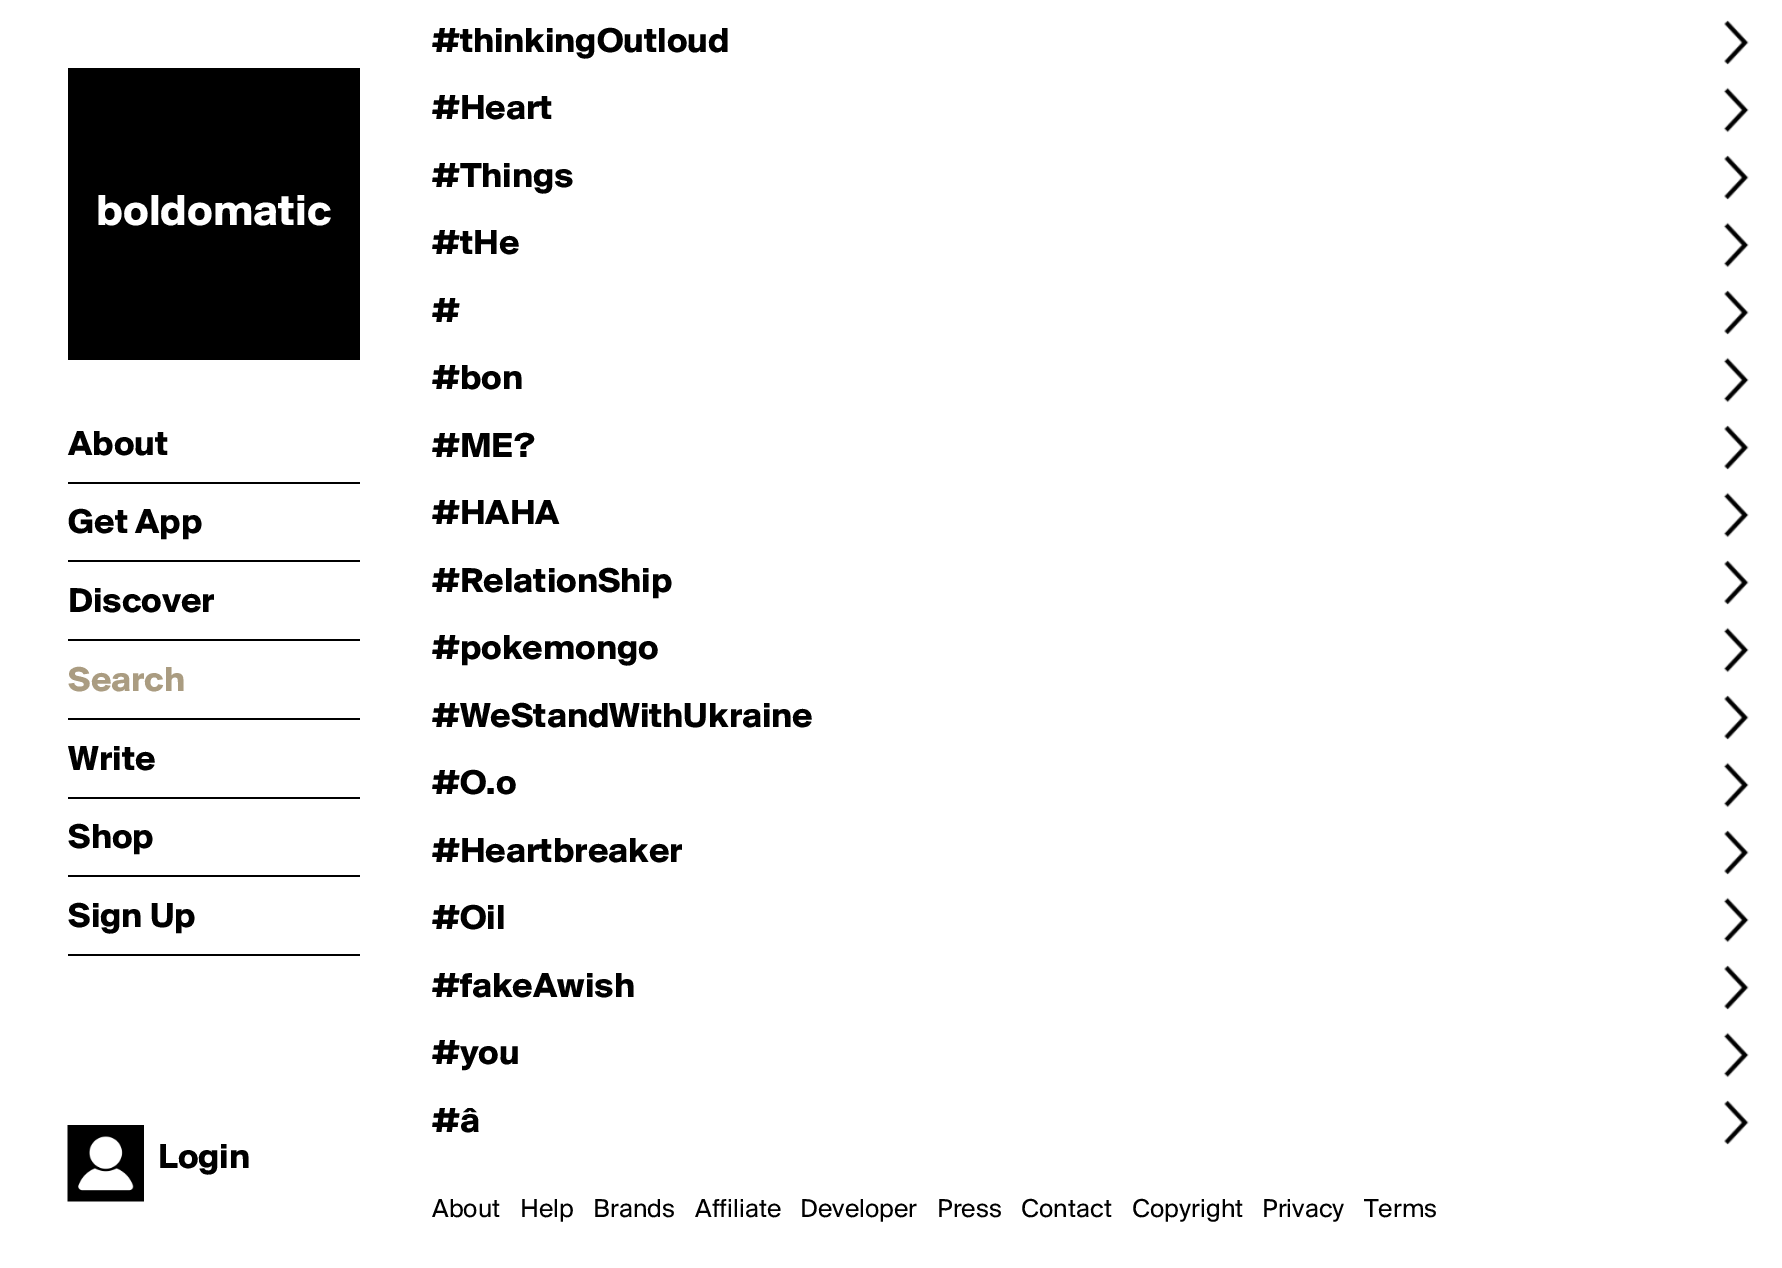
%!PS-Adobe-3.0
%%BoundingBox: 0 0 1782 1268
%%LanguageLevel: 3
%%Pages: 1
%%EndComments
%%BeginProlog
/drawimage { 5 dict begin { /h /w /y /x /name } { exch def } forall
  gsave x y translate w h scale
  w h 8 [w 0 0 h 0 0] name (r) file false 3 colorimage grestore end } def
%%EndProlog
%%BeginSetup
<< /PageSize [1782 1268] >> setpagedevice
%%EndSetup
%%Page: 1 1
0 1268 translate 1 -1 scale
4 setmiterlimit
1 setgray
0 0 1782 1268 rectfill
0 setgray
68 68 292 292 rectfill
68 482 292 2 rectfill
68 560 292 2 rectfill
68 639 292 2 rectfill
68 718 292 2 rectfill
68 797 292 2 rectfill
68 875 292 2 rectfill
68 954 292 2 rectfill
(images/1.raw) 67 1125 77 77 drawimage
(images/2.raw) 1724 20 25 45 drawimage
(images/3.raw) 1723 87 26 46 drawimage
(images/2.raw) 1724 155 25 45 drawimage
(images/3.raw) 1723 222 26 46 drawimage
(images/2.raw) 1724 290 25 45 drawimage
(images/3.raw) 1723 357 26 46 drawimage
(images/2.raw) 1724 425 25 45 drawimage
(images/3.raw) 1723 492 26 46 drawimage
(images/2.raw) 1724 560 25 45 drawimage
(images/3.raw) 1723 627 26 46 drawimage
(images/4.raw) 1724 695 25 45 drawimage
(images/3.raw) 1723 762 26 46 drawimage
(images/2.raw) 1724 830 25 45 drawimage
(images/3.raw) 1723 897 26 46 drawimage
(images/5.raw) 1724 965 25 45 drawimage
(images/3.raw) 1723 1032 26 46 drawimage
(images/2.raw) 1724 1100 25 45 drawimage
/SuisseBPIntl-Bold [45 0 0 -45 0 0] selectfont
1 setgray
96 225 moveto (boldomatic) show
/SuisseBPIntl-Bold [36 0 0 -36 0 0] selectfont
0 setgray
68 455 moveto (About) show
68 533 moveto (Get App) show
68 612 moveto (Discover) show
0.667 0.612 0.506 setrgbcolor
68 691 moveto (Search) show
0 setgray
68 770 moveto (Write) show
68 848 moveto (Shop) show
68 927 moveto (Sign Up) show
158 1168 moveto (Login) show
432 52 moveto (#thinkingOutloud) show
432 119 moveto (#Heart) show
432 187 moveto (#Things) show
432 254 moveto (#tHe) show
432 322 moveto (#) show
432 389 moveto (#bon) show
432 457 moveto (#ME?) show
432 524 moveto (#HAHA) show
432 592 moveto (#RelationShip) show
432 659 moveto (#pokemongo) show
432 727 moveto (#WeStandWithUkraine) show
432 794 moveto (#O.o) show
432 862 moveto (#Heartbreaker) show
432 929 moveto (#Oil) show
432 997 moveto (#fakeAwish) show
432 1064 moveto (#you) show
432 1132 moveto (#â) show
/SuisseBPIntl-Regular [27 0 0 -27 0 0] selectfont
432 1217 moveto (About) show
520 1217 moveto (Help) show
593 1217 moveto (Brands) show
695 1217 moveto (Affiliate) show
800 1217 moveto (Developer) show
937 1217 moveto (Press) show
1021 1217 moveto (Contact) show
1132 1217 moveto (Copyright) show
1262 1217 moveto (Privacy) show
1364 1217 moveto (Terms) show
showpage
%%EOF
